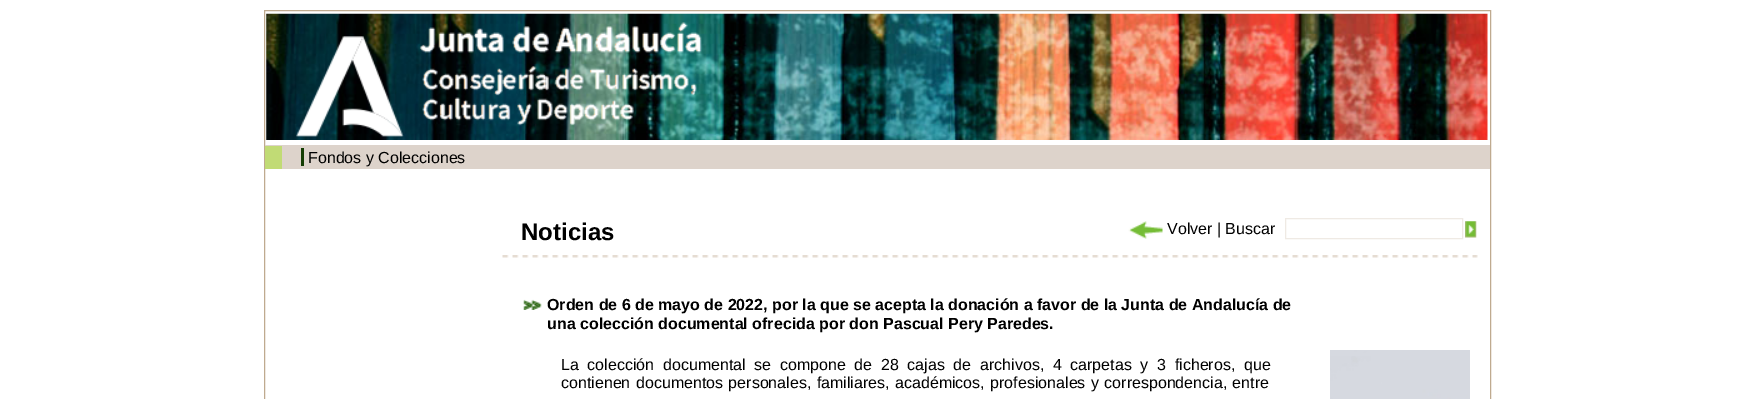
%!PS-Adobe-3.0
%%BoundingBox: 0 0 1754 399
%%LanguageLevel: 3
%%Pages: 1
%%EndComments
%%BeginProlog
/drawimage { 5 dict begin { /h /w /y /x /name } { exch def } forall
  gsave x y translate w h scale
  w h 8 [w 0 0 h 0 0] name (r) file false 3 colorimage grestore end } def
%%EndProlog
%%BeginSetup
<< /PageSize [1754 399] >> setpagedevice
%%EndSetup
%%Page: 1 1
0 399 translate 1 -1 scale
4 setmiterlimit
1 setgray
0 0 1754 399 rectfill
0.749 0.667 0.561 setrgbcolor
264.5 10.5 1226 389 rectstroke
(images/1.raw) 266 13 1222 127 drawimage
(images/2.raw) 296 36 108 101 drawimage
(images/3.raw) 419 22 283 104 drawimage
0.867 0.827 0.796 setrgbcolor
265 145 1225 24 rectfill
0.757 0.859 0.459 setrgbcolor
265 146 17 23 rectfill
0.078 0.239 0.012 setrgbcolor
301 148 3 18 rectfill
(images/4.raw) 1128 221 35 18 drawimage
0.937 0.918 0.894 setrgbcolor
1285.5 218.5 177 20 rectstroke
(images/5.raw) 1465 221 12 17 drawimage
(images/6.raw) 502 255 976 3 drawimage
(images/7.raw) 523 299 19 11 drawimage
(images/8.raw) 1330 350 140 49 drawimage
/LiberationSans-Regular [16 0 0 -16 0 0] selectfont
0 setgray
308 163 moveto (Fondos y Colecciones) show
/LiberationSans-Bold [24 0 0 -24 0 0] selectfont
521 240 moveto (Noticias) show
/LiberationSans-Regular [16 0 0 -16 0 0] selectfont
1167 234 moveto (Volver | Buscar) show
/LiberationSans-Bold [16 0 0 -16 0 0] selectfont
547 310 moveto (Orden de 6 de mayo de 2022, por la que se acepta la donación a favor de la Junta de Andalucía de) show
547 329 moveto (una colección documental ofrecida por don Pascual Pery Paredes.) show
/LiberationSans-Regular [16 0 0 -16 0 0] selectfont
561 370 moveto 4.25 0 32 (La colección documental se compone de 28 cajas de archivos, 4 carpetas y 3 ficheros, que) widthshow
561 388 moveto 1 0 32 (contienen documentos personales, familiares, académicos, profesionales y correspondencia, entre) widthshow
showpage
%%EOF
